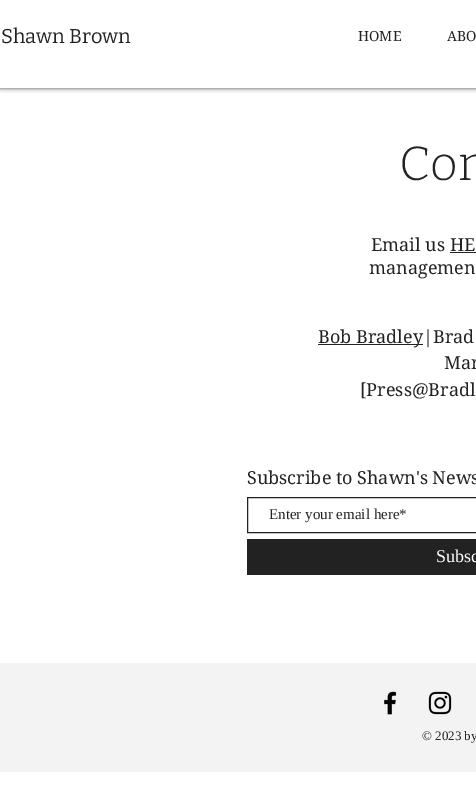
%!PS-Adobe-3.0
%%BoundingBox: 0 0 476 798
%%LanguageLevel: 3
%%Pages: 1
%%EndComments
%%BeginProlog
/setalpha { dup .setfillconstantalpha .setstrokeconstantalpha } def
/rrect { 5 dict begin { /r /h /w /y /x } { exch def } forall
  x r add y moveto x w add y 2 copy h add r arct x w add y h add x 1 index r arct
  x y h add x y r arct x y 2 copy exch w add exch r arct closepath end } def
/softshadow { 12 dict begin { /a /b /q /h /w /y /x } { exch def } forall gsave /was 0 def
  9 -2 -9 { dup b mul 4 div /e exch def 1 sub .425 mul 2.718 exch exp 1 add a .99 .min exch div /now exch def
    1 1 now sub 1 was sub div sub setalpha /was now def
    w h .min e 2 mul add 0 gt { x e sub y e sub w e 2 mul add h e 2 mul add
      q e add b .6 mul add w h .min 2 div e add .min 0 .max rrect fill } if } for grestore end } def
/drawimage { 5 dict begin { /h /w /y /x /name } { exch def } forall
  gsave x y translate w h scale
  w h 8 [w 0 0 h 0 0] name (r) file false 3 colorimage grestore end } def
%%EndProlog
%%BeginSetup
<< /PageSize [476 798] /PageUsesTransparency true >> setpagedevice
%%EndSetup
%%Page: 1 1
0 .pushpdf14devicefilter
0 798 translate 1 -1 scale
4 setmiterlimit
1 setgray
0 0 476 798 rectfill
gsave
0 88 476 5 rectclip
0 setgray
0 0 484 88 0 2.5 0.7 softshadow
grestore
0.133 setgray
450 252 26 1 rectfill
318 344 105 1 rectfill
247.5 497.5 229 35 rectstroke
247 539 229 36 rectfill
0.953 setgray
0 663 476 109 rectfill
(images/1.raw) 384 691 13 24 drawimage
(images/2.raw) 428 691 24 24 drawimage
/Bitter-Regular [20 0 0 -20 0 0] selectfont
0.133 setgray
1 43 moveto (Shawn Brown) show
/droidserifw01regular-Regular [14 0 0 -14 0 0] selectfont
358 41 moveto (HOME) show
447 41 moveto (ABO) show
/Bitter-Thin [48 0 0 -48 0 0] selectfont
399 180 moveto (Con) show
/droidserifw01regular-Regular [18 0 0 -18 0 0] selectfont
371 251 moveto (Email us HE) show
369 274 moveto (managemen) show
318 343 moveto (Bob Bradley|Brad) show
444 369 moveto (Mar) show
360 396 moveto ([Press@Bradl) show
247 484 moveto (Subscribe to Shawn's News) show
/LiberationSerif-Regular [15 0 0 -15 0 0] selectfont
269 519 moveto (Enter your email here*) show
/LiberationSerif-Regular [18 0 0 -18 0 0] selectfont
1 setgray
436 562 moveto (Subsc) show
/LiberationSerif-Regular [13 0 0 -13 0 0] selectfont
0.133 setgray
422 740 moveto (© 2023 by) show
.poppdf14devicefilter showpage
%%EOF
